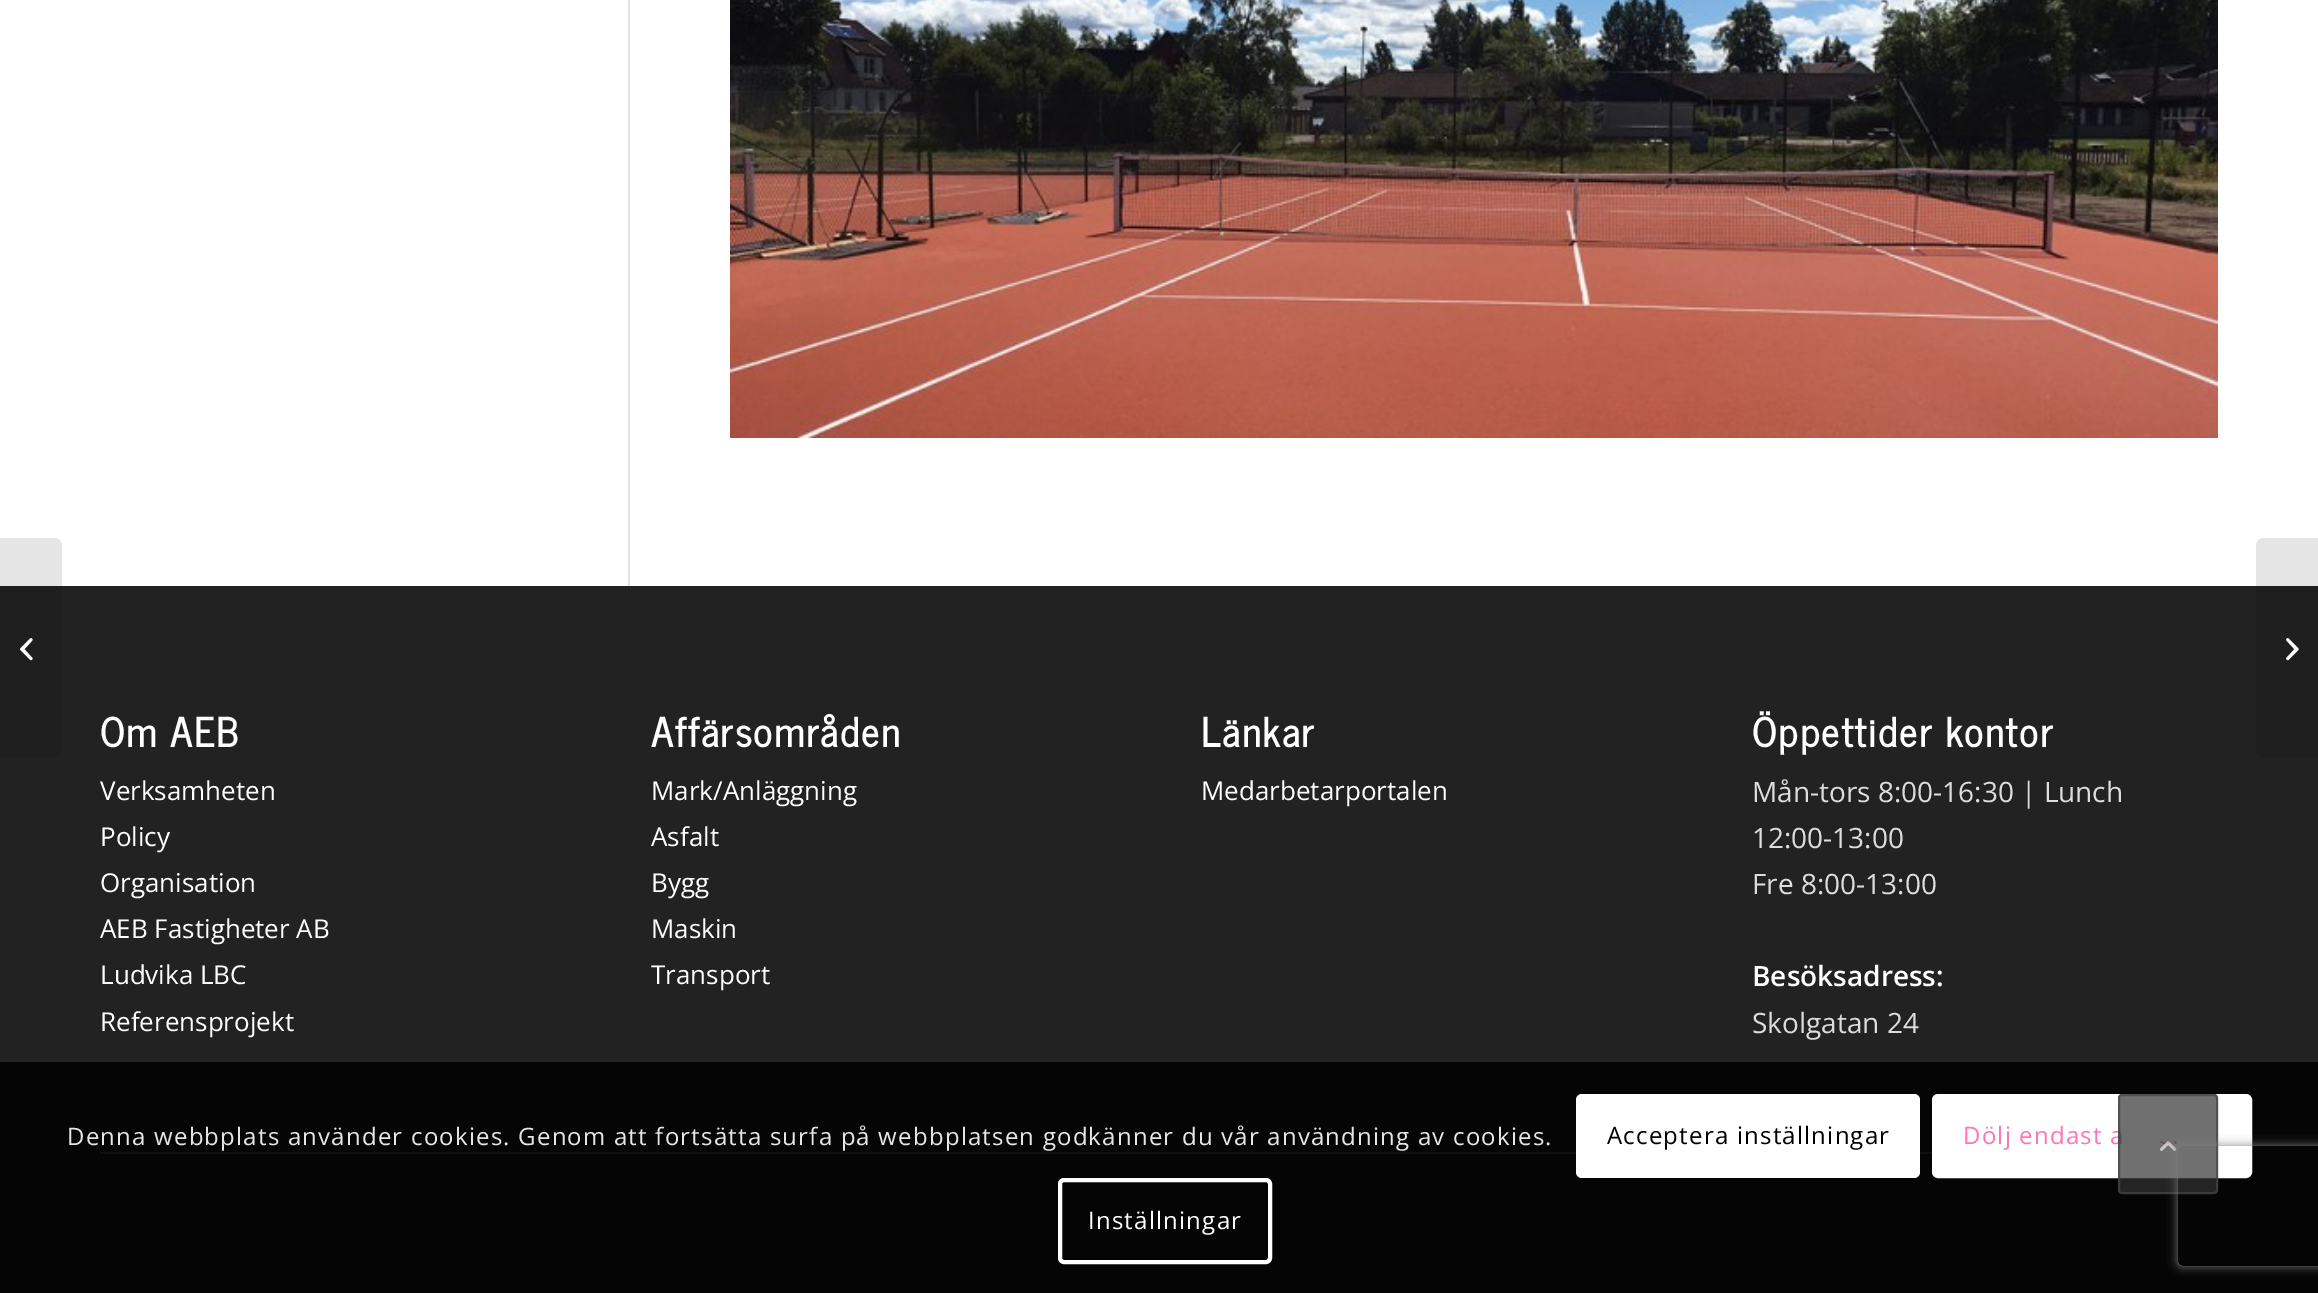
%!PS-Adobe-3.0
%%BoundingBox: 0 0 2318 1293
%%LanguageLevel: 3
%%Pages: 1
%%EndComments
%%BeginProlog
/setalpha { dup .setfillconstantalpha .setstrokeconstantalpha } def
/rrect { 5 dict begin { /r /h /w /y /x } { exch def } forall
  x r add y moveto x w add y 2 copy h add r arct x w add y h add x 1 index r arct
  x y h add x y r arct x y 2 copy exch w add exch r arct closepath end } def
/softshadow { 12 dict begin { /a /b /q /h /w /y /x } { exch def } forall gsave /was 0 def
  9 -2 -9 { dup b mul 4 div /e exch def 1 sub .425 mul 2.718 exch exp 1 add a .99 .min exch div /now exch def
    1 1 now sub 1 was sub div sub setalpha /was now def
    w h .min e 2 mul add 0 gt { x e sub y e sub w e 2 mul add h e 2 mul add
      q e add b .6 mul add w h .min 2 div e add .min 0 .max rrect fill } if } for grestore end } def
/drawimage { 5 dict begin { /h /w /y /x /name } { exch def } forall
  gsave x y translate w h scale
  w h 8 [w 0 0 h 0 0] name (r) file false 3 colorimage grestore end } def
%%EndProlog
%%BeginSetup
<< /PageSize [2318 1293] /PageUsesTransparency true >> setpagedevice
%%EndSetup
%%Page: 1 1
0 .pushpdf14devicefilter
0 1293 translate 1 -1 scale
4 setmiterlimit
1 setgray
0 0 2318 1293 rectfill
0.133 setgray
0 586 2318 707 rectfill
0.1 setalpha
0 setgray
newpath 0 538 moveto 54 538 lineto 58.5 538 62 541.5 62 546 curveto 62 750 lineto 62 754.5 58.5 758 54 758 curveto 0 758 lineto closepath fill
1 setalpha
(images/1.raw) 20 638 13 23 drawimage
0.1 setalpha
newpath 2264 538 moveto 2318 538 lineto 2318 758 lineto 2264 758 lineto 2259.5 758 2256 754.5 2256 750 curveto 2256 546 lineto 2256 541.5 2259.5 538 2264 538 curveto closepath fill
1 setalpha
(images/2.raw) 2286 638 13 23 drawimage
0.882 setgray
628 0 2 586 rectfill
(images/3.raw) 730 0 1488 438 drawimage
0.42 0.416 0.42 setrgbcolor
100 1152 1832 2 rectfill
0.85 setalpha
0 setgray
0 1062 2318 231 rectfill
1 setalpha
1 setgray
1576 1094 344 84 6 rrect fill
1934 1096 316 80 4 rrect gsave fill grestore
4 setlinewidth
stroke
1060 1180 210 82 4 rrect stroke
/NewsCycle-Bold [39.25 0 0 -39.25 0 0] selectfont
100 747 moveto 2 0 (Om AEB) ashow
/OpenSans-Regular [26 0 0 -26 0 0] selectfont
100 800 moveto (Verksamheten) show
100 846 moveto (Policy) show
100 892 moveto (Organisation) show
100 938 moveto (AEB Fastigheter AB) show
100 984 moveto (Ludvika LBC) show
100 1031 moveto (Referensprojekt) show
/NewsCycle-Bold [39.25 0 0 -39.25 0 0] selectfont
651 747 moveto 2 0 (Affärsområden) ashow
/OpenSans-Regular [26 0 0 -26 0 0] selectfont
651 800 moveto (Mark/Anläggning) show
651 846 moveto (Asfalt) show
651 892 moveto (Bygg) show
651 938 moveto (Maskin) show
651 984 moveto (Transport) show
/NewsCycle-Bold [39.25 0 0 -39.25 0 0] selectfont
1201 747 moveto 2 0 (Länkar) ashow
/OpenSans-Regular [26 0 0 -26 0 0] selectfont
1201 800 moveto (Medarbetarportalen) show
/NewsCycle-Bold [39.25 0 0 -39.25 0 0] selectfont
1752 747 moveto 2 0 (Öppettider kontor) ashow
/OpenSans-Regular [28 0 0 -28 0 0] selectfont
0.867 setgray
1752 802 moveto (Mån-tors 8:00-16:30 | Lunch) show
1752 848 moveto (12:00-13:00) show
1752 894 moveto (Fre 8:00-13:00) show
/OpenSans-SemiBold [28 0 0 -28 0 0] selectfont
1 setgray
1752 986 moveto (Besöksadress:) show
/OpenSans-Regular [28 0 0 -28 0 0] selectfont
0.867 setgray
1752 1033 moveto (Skolgatan 24) show
/OpenSans-Regular [24 0 0 -24 0 0] selectfont
0.902 setgray
67 1145 moveto 1.2 0 (Denna webbplats använder cookies. Genom att fortsätta surfa på webbplatsen godkänner du vår användning av cookies.) ashow
0 setgray
1607 1144 moveto 1.2 0 (Acceptera inställningar) ashow
1 0.459 0.71 setrgbcolor
1963 1144 moveto 1.2 0 (Dölj endast a) ashow
1 setgray
1088 1229 moveto 1.2 0 (Inställningar) ashow
0.7 setalpha
0.2 setgray
2118 1094 100 100 4 rrect fill
0.267 setgray
2 setlinewidth
2119 1095 98 98 3 rrect stroke
1 setalpha
(images/4.raw) 2160 1141 17 10 drawimage
gsave
newpath 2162 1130 moveto 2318 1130 lineto 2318 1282 lineto 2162 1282 lineto closepath 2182 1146 moveto 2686 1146 lineto 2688 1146 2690 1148 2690 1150 curveto 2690 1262 lineto 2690 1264 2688 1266 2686 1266 curveto 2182 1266 lineto 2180 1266 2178 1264 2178 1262 curveto 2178 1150 lineto 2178 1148 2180 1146 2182 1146 curveto closepath eoclip newpath
0.502 setgray
2178 1146 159 120 4 5 1 softshadow
grestore
.poppdf14devicefilter showpage
%%EOF
